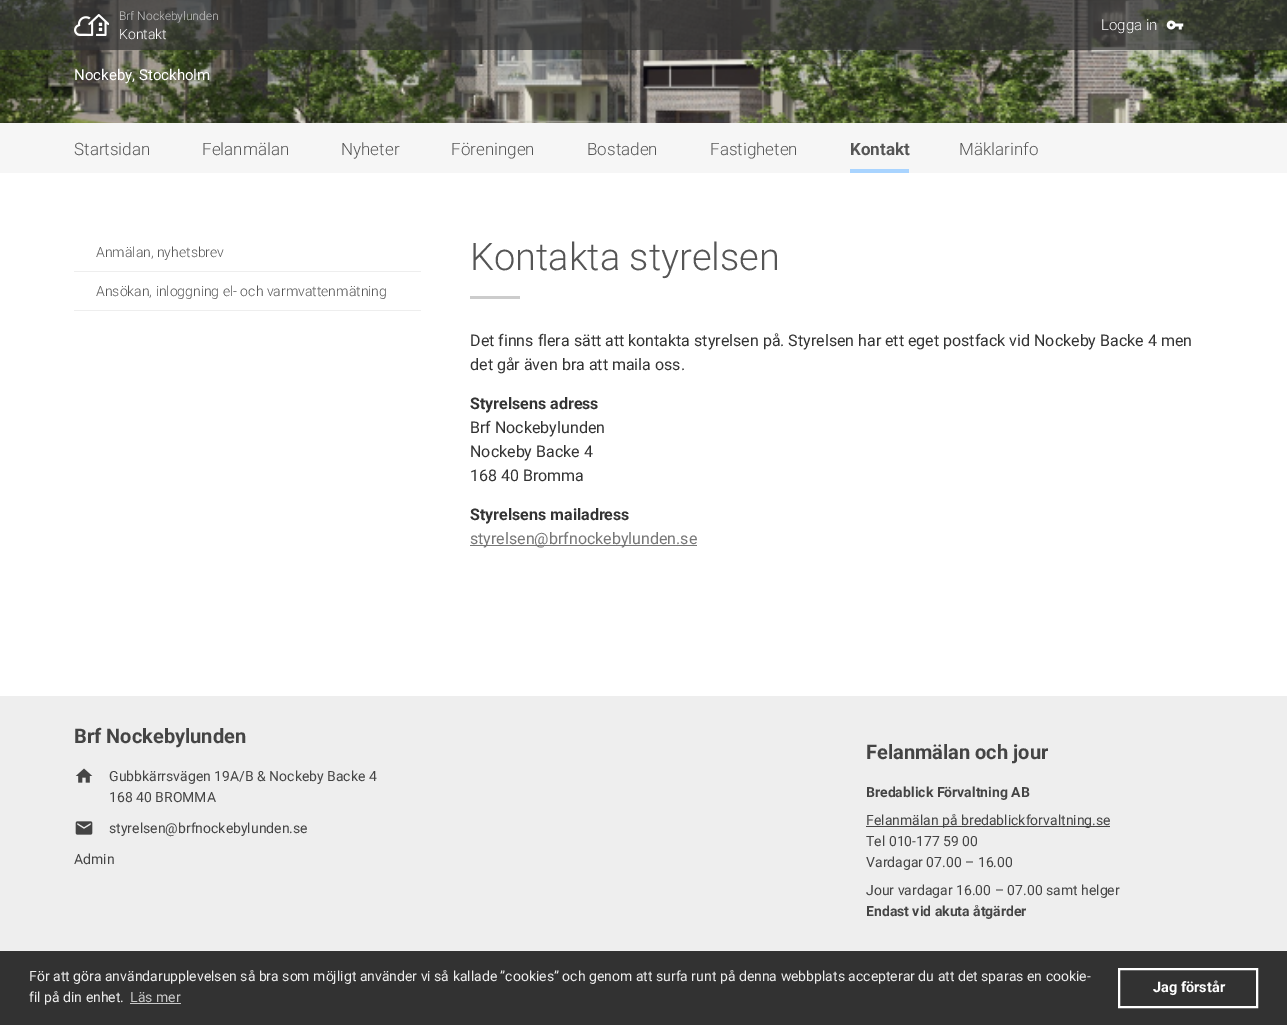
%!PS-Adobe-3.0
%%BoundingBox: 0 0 1287 1025
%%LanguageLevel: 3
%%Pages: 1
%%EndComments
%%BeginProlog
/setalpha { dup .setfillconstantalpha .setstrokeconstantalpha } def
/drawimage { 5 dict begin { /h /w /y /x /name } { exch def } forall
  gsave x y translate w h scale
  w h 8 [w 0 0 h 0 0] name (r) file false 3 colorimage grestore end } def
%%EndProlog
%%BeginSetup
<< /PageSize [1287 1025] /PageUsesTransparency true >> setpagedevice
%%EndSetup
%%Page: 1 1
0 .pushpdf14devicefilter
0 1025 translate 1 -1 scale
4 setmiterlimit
1 setgray
0 0 1287 1025 rectfill
(images/3.raw) 0 0 1287 123 drawimage
0.7 setalpha
0.196 setgray
0 0 1287 50 rectfill
1 setalpha
(images/1.raw) 74 14 35 22 drawimage
(images/2.raw) 1166 20 18 10 drawimage
0.965 setgray
0 123 1287 50 rectfill
0.663 0.831 1 setrgbcolor
850 169 59 4 rectfill
0.933 setgray
74 271 347 1 rectfill
74 310 347 1 rectfill
0.8 setgray
470 296 50 3 rectfill
0.467 setgray
470 545 227 1 rectfill
0.933 setgray
0 696 1287 255 rectfill
(images/4.raw) 75 768 18 15 drawimage
(images/5.raw) 75 821 18 14 drawimage
0.267 setgray
866 826 244 1 rectfill
0.196 setgray
0 951 1287 74 rectfill
0.784 setgray
130 1003 51 1 rectfill
1 setgray
2 setlinewidth
1119 969 138 38 rectstroke
/Roboto-Light [12 0 0 -12 0 0] selectfont
0.788 setgray
119 20 moveto (Brf Nockebylunden) show
/Roboto-Light [14 0 0 -14 0 0] selectfont
1 setgray
119 39 moveto (Kontakt) show
/Roboto-Light [15 0 0 -15 0 0] selectfont
1101 30 moveto (Logga in) show
/Roboto-Regular [15 0 0 -15 0 0] selectfont
74 80 moveto (Nockeby, Stockholm) show
/Roboto-Light [17 0 0 -17 0 0] selectfont
0.333 setgray
74 155 moveto (Startsidan) show
202 155 moveto (Felanmälan) show
341 155 moveto (Nyheter) show
451 155 moveto (Föreningen) show
587 155 moveto (Bostaden) show
710 155 moveto (Fastigheten) show
/Roboto-Bold [17 0 0 -17 0 0] selectfont
850 155 moveto (Kontakt) show
/Roboto-Light [17 0 0 -17 0 0] selectfont
959 155 moveto (Mäklarinfo) show
/Roboto-Light [14 0 0 -14 0 0] selectfont
96 257 moveto (Anmälan, nyhetsbrev) show
96 296 moveto (Ansökan, inloggning el- och varmvattenmätning) show
/Roboto-Light [38 0 0 -38 0 0] selectfont
470 270 moveto (Kontakta styrelsen) show
/Roboto-Regular [16 0 0 -16 0 0] selectfont
0.2 setgray
470 346 moveto (Det finns flera sätt att kontakta styrelsen på. Styrelsen har ett eget postfack vid Nockeby Backe 4 men) show
470 370 moveto (det går även bra att maila oss.) show
/Roboto-Bold [16 0 0 -16 0 0] selectfont
470 409 moveto (Styrelsens adress) show
/Roboto-Regular [16 0 0 -16 0 0] selectfont
470 433 moveto (Brf Nockebylunden) show
470 457 moveto (Nockeby Backe 4) show
470 481 moveto (168 40 Bromma) show
/Roboto-Bold [16 0 0 -16 0 0] selectfont
470 520 moveto (Styrelsens mailadress) show
/Roboto-Regular [16 0 0 -16 0 0] selectfont
0.467 setgray
470 544 moveto (styrelsen@brfnockebylunden.se) show
/Roboto-Bold [20 0 0 -20 0 0] selectfont
0.267 setgray
74 743 moveto (Brf Nockebylunden) show
/Roboto-Regular [14 0 0 -14 0 0] selectfont
109 781 moveto (Gubbkärrsvägen 19A/B & Nockeby Backe 4) show
109 802 moveto (168 40 BROMMA) show
109 833 moveto (styrelsen@brfnockebylunden.se) show
74 864 moveto (Admin) show
/Roboto-Bold [20 0 0 -20 0 0] selectfont
866 759 moveto (Felanmälan och jour) show
/Roboto-Bold [14 0 0 -14 0 0] selectfont
866 797 moveto (Bredablick Förvaltning AB) show
/Roboto-Regular [14 0 0 -14 0 0] selectfont
866 825 moveto (Felanmälan på bredablickforvaltning.se) show
866 846 moveto (Tel 010-177 59 00) show
866 867 moveto (Vardagar 07.00 – 16.00) show
866 895 moveto (Jour vardagar 16.00 – 07.00 samt helger) show
/Roboto-Bold [14 0 0 -14 0 0] selectfont
866 916 moveto (Endast vid akuta åtgärder) show
/Roboto-Regular [14 0 0 -14 0 0] selectfont
0.933 setgray
29 981 moveto (För att göra användarupplevelsen så bra som möjligt använder vi så kallade ”cookies” och genom att surfa runt på denna webbplats accepterar du att det sparas en cookie-) show
29 1002 moveto (fil på din enhet.) show
0.788 setgray
130 1002 moveto (Läs mer) show
/Roboto-Bold [14.5 0 0 -14.5 0 0] selectfont
1 setgray
1153 992 moveto (Jag förstår) show
.poppdf14devicefilter showpage
%%EOF
